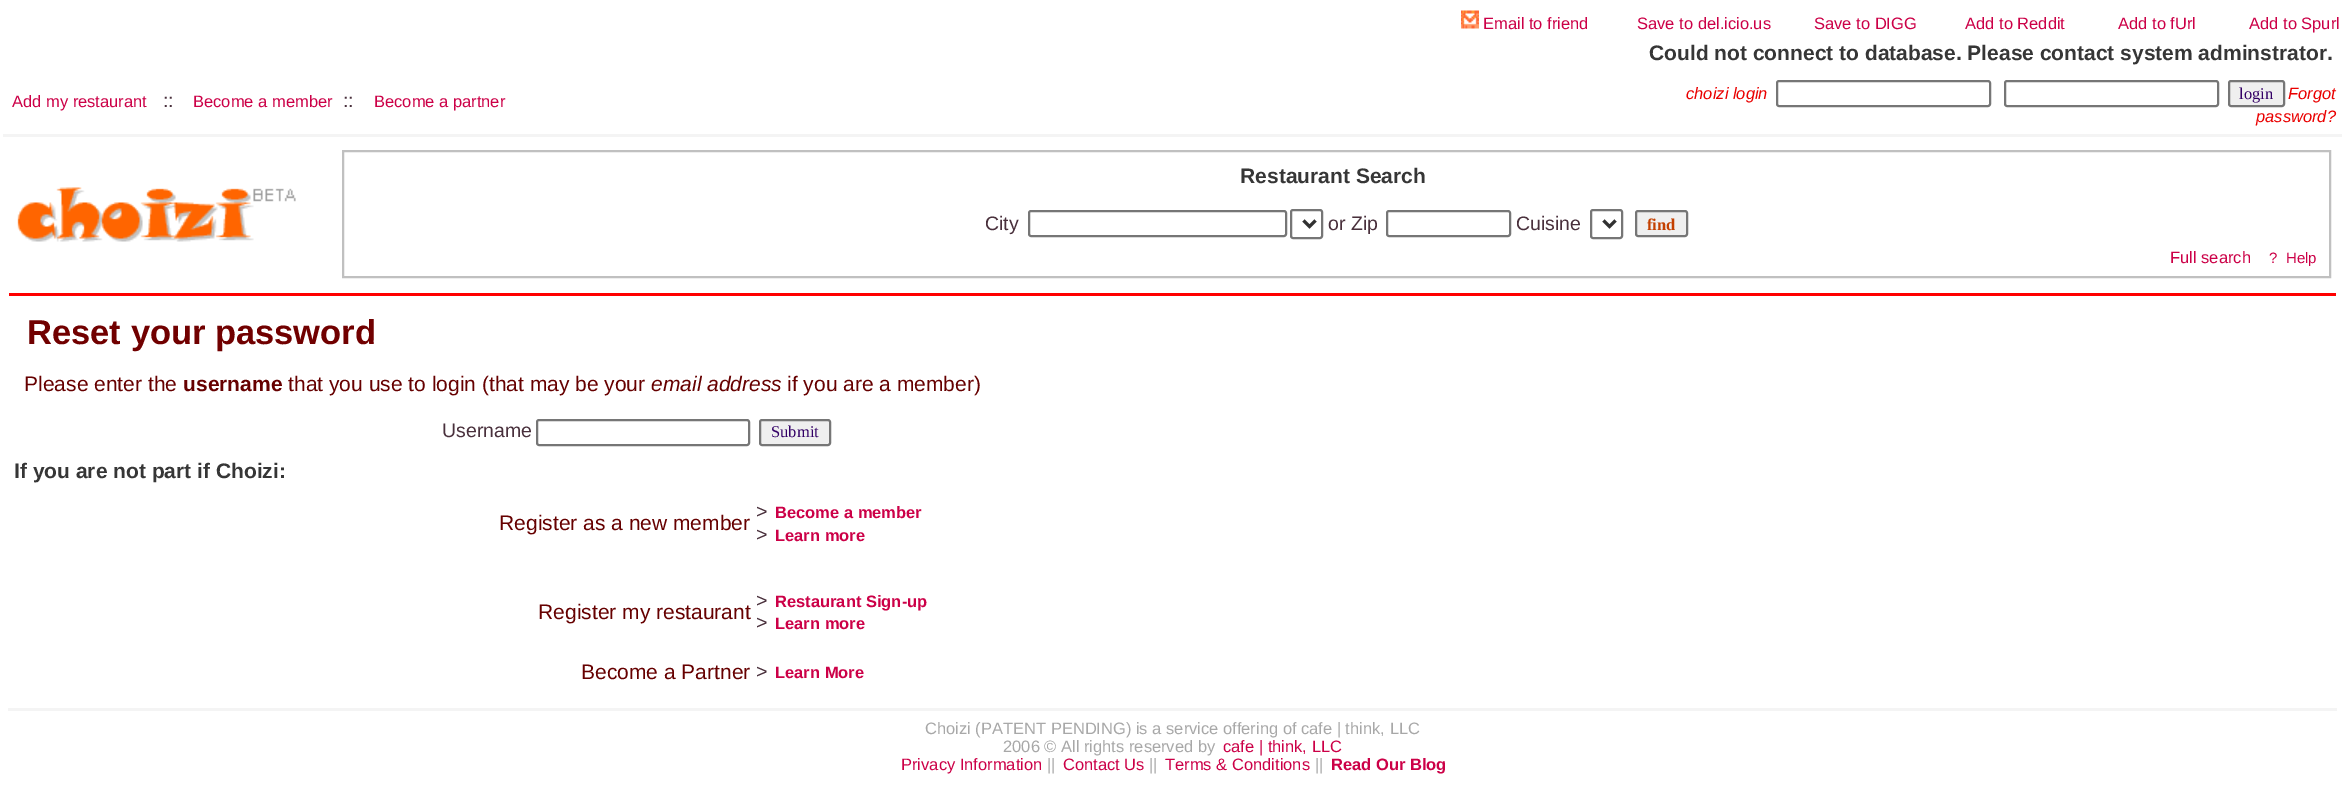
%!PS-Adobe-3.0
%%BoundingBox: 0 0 2344 811
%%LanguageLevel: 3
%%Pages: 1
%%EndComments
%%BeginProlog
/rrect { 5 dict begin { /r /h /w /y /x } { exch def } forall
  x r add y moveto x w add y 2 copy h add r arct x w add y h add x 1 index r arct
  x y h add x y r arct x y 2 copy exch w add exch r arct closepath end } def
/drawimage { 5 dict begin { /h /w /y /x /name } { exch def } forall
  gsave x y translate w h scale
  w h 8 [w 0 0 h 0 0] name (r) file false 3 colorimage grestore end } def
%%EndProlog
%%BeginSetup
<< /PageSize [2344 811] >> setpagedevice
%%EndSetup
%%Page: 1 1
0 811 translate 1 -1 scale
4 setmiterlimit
1 setgray
0 0 2344 811 rectfill
(images/1.raw) 1461 10 18 19 drawimage
0.463 setgray
2 setlinewidth
1777 81 213 25 2 rrect stroke
2005 81 213 25 2 rrect stroke
0.937 setgray
2229 81 55 25 2 rrect gsave fill grestore
0.463 setgray
stroke
0.957 setgray
3 134 2339 3 rectfill
(images/2.raw) 17 187 279 55 drawimage
0.753 setgray
343 151 1987 126 rectstroke
0.463 setgray
1029 211 257 25 2 rrect stroke
1291 210 31 28 2 rrect stroke
0.192 setgray
3 setlinewidth
newpath 1303.5 220.5 moveto 1309.5 226.5 lineto 1315.5 220.5 lineto stroke
0.463 setgray
2 setlinewidth
1387 211 123 25 2 rrect stroke
1591 210 31 28 2 rrect stroke
0.192 setgray
3 setlinewidth
newpath 1603.5 220.5 moveto 1609.5 226.5 lineto 1615.5 220.5 lineto stroke
0.937 setgray
1636 211 51 25 2 rrect gsave fill grestore
0.463 setgray
2 setlinewidth
stroke
1 0 0 setrgbcolor
9 293 2327 3 rectfill
0.463 setgray
537 420 212 25 2 rrect stroke
0.937 setgray
760 420 70 25 2 rrect gsave fill grestore
0.463 setgray
stroke
0.957 setgray
8 708 2329 3 rectfill
/LiberationSans-Regular [16.5 0 0 -16.5 0 0] selectfont
0.8 0 0.278 setrgbcolor
1483 29 moveto (Email to friend) show
1637 29 moveto (Save to del.icio.us) show
1814 29 moveto (Save to DIGG) show
1965 29 moveto (Add to Reddit) show
2118 29 moveto (Add to fUrl) show
2249 29 moveto (Add to Spurl) show
/LiberationSans-Bold [21 0 0 -21 0 0] selectfont
0.212 setgray
1649 60 moveto (Could not connect to database. Please contact system adminstrator.) show
/LiberationSans-Regular [16.5 0 0 -16.5 0 0] selectfont
0.8 0 0.278 setrgbcolor
12 107 moveto (Add my restaurant) show
/LiberationSans-Regular [19.5 0 0 -19.5 0 0] selectfont
0.286 0.188 0.235 setrgbcolor
163 107 moveto (::) show
/LiberationSans-Regular [16.5 0 0 -16.5 0 0] selectfont
0.8 0 0.278 setrgbcolor
193 107 moveto (Become a member) show
/LiberationSans-Regular [19.5 0 0 -19.5 0 0] selectfont
0.286 0.188 0.235 setrgbcolor
343 107 moveto (::) show
/LiberationSans-Regular [16.5 0 0 -16.5 0 0] selectfont
0.8 0 0.278 setrgbcolor
374 107 moveto (Become a partner) show
/LiberationSans-Italic [16.5 0 0 -16.5 0 0] selectfont
0.918 0 0 setrgbcolor
1686 99 moveto (choizi login) show
/LiberationSerif-Regular [16.5 0 0 -16.5 0 0] selectfont
0.2 0 0.4 setrgbcolor
2239 99 moveto (login) show
/LiberationSans-Italic [16.5 0 0 -16.5 0 0] selectfont
0.918 0 0 setrgbcolor
2288 99 moveto (Forgot) show
2256 122 moveto (password?) show
/LiberationSans-Bold [21 0 0 -21 0 0] selectfont
0.212 setgray
1240 183 moveto (Restaurant Search) show
/LiberationSans-Regular [19.5 0 0 -19.5 0 0] selectfont
0.286 0.188 0.235 setrgbcolor
985 230 moveto (City) show
1328 230 moveto (or Zip) show
1516 230 moveto (Cuisine) show
/LiberationSerif-Bold [16.5 0 0 -16.5 0 0] selectfont
0.769 0.251 0 setrgbcolor
1647 230 moveto (find) show
/LiberationSans-Regular [16.5 0 0 -16.5 0 0] selectfont
0.8 0 0.278 setrgbcolor
2170 263 moveto (Full search) show
/LiberationSans-Regular [15 0 0 -15 0 0] selectfont
2269 263 moveto (?  Help) show
/LiberationSans-Bold [34.5 0 0 -34.5 0 0] selectfont
0.443 0 0 setrgbcolor
27 344 moveto (Reset your password) show
/LiberationSans-Regular [21 0 0 -21 0 0] selectfont
0.4 0 0 setrgbcolor
24 391 moveto (Please enter the) show
/LiberationSans-Bold [21 0 0 -21 0 0] selectfont
183 391 moveto (username) show
/LiberationSans-Regular [21 0 0 -21 0 0] selectfont
288 391 moveto (that you use to login \(that may be your) show
/LiberationSans-Italic [21 0 0 -21 0 0] selectfont
651 391 moveto (email address) show
/LiberationSans-Regular [21 0 0 -21 0 0] selectfont
787 391 moveto (if you are a member\)) show
/LiberationSans-Regular [19.5 0 0 -19.5 0 0] selectfont
0.286 0.188 0.235 setrgbcolor
442 437 moveto (Username) show
/LiberationSerif-Regular [16.5 0 0 -16.5 0 0] selectfont
0.2 0 0.4 setrgbcolor
771 437 moveto (Submit) show
/LiberationSans-Bold [21 0 0 -21 0 0] selectfont
0.212 setgray
14 478 moveto (If you are not part if Choizi:) show
/LiberationSans-Regular [21 0 0 -21 0 0] selectfont
0.4 0 0 setrgbcolor
499 530 moveto (Register as a new member) show
/LiberationSans-Regular [19.5 0 0 -19.5 0 0] selectfont
0.286 0.188 0.235 setrgbcolor
756 518 moveto (>) show
/LiberationSans-Bold [16.5 0 0 -16.5 0 0] selectfont
0.8 0 0.278 setrgbcolor
775 518 moveto (Become a member) show
/LiberationSans-Regular [19.5 0 0 -19.5 0 0] selectfont
0.286 0.188 0.235 setrgbcolor
756 541 moveto (>) show
/LiberationSans-Bold [16.5 0 0 -16.5 0 0] selectfont
0.8 0 0.278 setrgbcolor
775 541 moveto (Learn more) show
/LiberationSans-Regular [21 0 0 -21 0 0] selectfont
0.4 0 0 setrgbcolor
538 619 moveto (Register my restaurant) show
/LiberationSans-Regular [19.5 0 0 -19.5 0 0] selectfont
0.286 0.188 0.235 setrgbcolor
756 607 moveto (>) show
/LiberationSans-Bold [16.5 0 0 -16.5 0 0] selectfont
0.8 0 0.278 setrgbcolor
775 607 moveto (Restaurant Sign-up) show
/LiberationSans-Regular [19.5 0 0 -19.5 0 0] selectfont
0.286 0.188 0.235 setrgbcolor
756 629 moveto (>) show
/LiberationSans-Bold [16.5 0 0 -16.5 0 0] selectfont
0.8 0 0.278 setrgbcolor
775 629 moveto (Learn more) show
/LiberationSans-Regular [21 0 0 -21 0 0] selectfont
0.4 0 0 setrgbcolor
581 679 moveto (Become a Partner) show
/LiberationSans-Regular [19.5 0 0 -19.5 0 0] selectfont
0.286 0.188 0.235 setrgbcolor
756 678 moveto (>) show
/LiberationSans-Bold [16.5 0 0 -16.5 0 0] selectfont
0.8 0 0.278 setrgbcolor
775 678 moveto (Learn More) show
/LiberationSans-Regular [16.5 0 0 -16.5 0 0] selectfont
0.659 setgray
925 734 moveto (Choizi \(PATENT PENDING\) is a service offering of cafe | think, LLC) show
1003 752 moveto (2006 © All rights reserved by) show
0.8 0 0.278 setrgbcolor
1223 752 moveto (cafe | think, LLC) show
901 770 moveto (Privacy Information) show
0.659 setgray
1047 770 moveto (||) show
0.8 0 0.278 setrgbcolor
1063 770 moveto (Contact Us) show
0.659 setgray
1149 770 moveto (||) show
0.8 0 0.278 setrgbcolor
1165 770 moveto (Terms & Conditions) show
0.659 setgray
1315 770 moveto (||) show
/LiberationSans-Bold [16.5 0 0 -16.5 0 0] selectfont
0.8 0 0.278 setrgbcolor
1331 770 moveto (Read Our Blog) show
showpage
%%EOF
